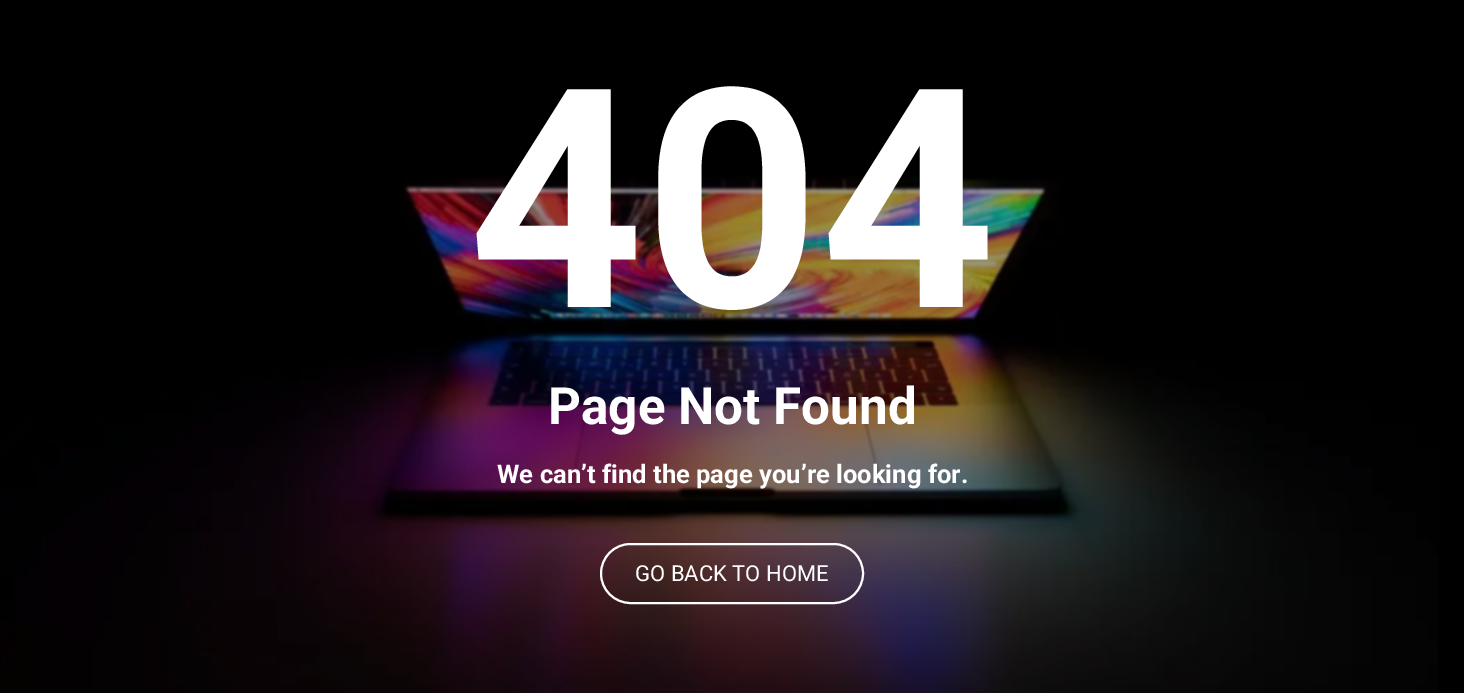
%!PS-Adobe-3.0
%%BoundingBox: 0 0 1464 693
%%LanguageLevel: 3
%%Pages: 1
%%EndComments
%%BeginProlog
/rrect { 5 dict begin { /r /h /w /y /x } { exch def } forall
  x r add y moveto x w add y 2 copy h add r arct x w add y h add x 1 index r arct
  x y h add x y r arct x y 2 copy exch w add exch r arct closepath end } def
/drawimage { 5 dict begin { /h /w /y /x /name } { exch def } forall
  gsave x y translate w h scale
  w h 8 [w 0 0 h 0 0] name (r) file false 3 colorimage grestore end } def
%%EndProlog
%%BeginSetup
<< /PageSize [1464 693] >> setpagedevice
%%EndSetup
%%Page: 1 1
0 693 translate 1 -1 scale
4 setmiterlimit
0 setgray
0 0 1464 693 rectfill
(images/1.raw) 0 176 1438 517 drawimage
1 setgray
2 setlinewidth
601 544 262 59 29.5 rrect stroke
/Roboto-Bold [307 0 0 -307 0 0] selectfont
468 307 moveto (404) show
/Roboto-Bold [51.25 0 0 -51.25 0 0] selectfont
548 424 moveto (Page Not Found) show
/Roboto-Bold [25.6 0 0 -25.6 0 0] selectfont
497 483 moveto (We can’t find the page you’re looking for.) show
/Roboto-Regular [22 0 0 -22 0 0] selectfont
635 581 moveto (GO BACK TO HOME) show
showpage
%%EOF
